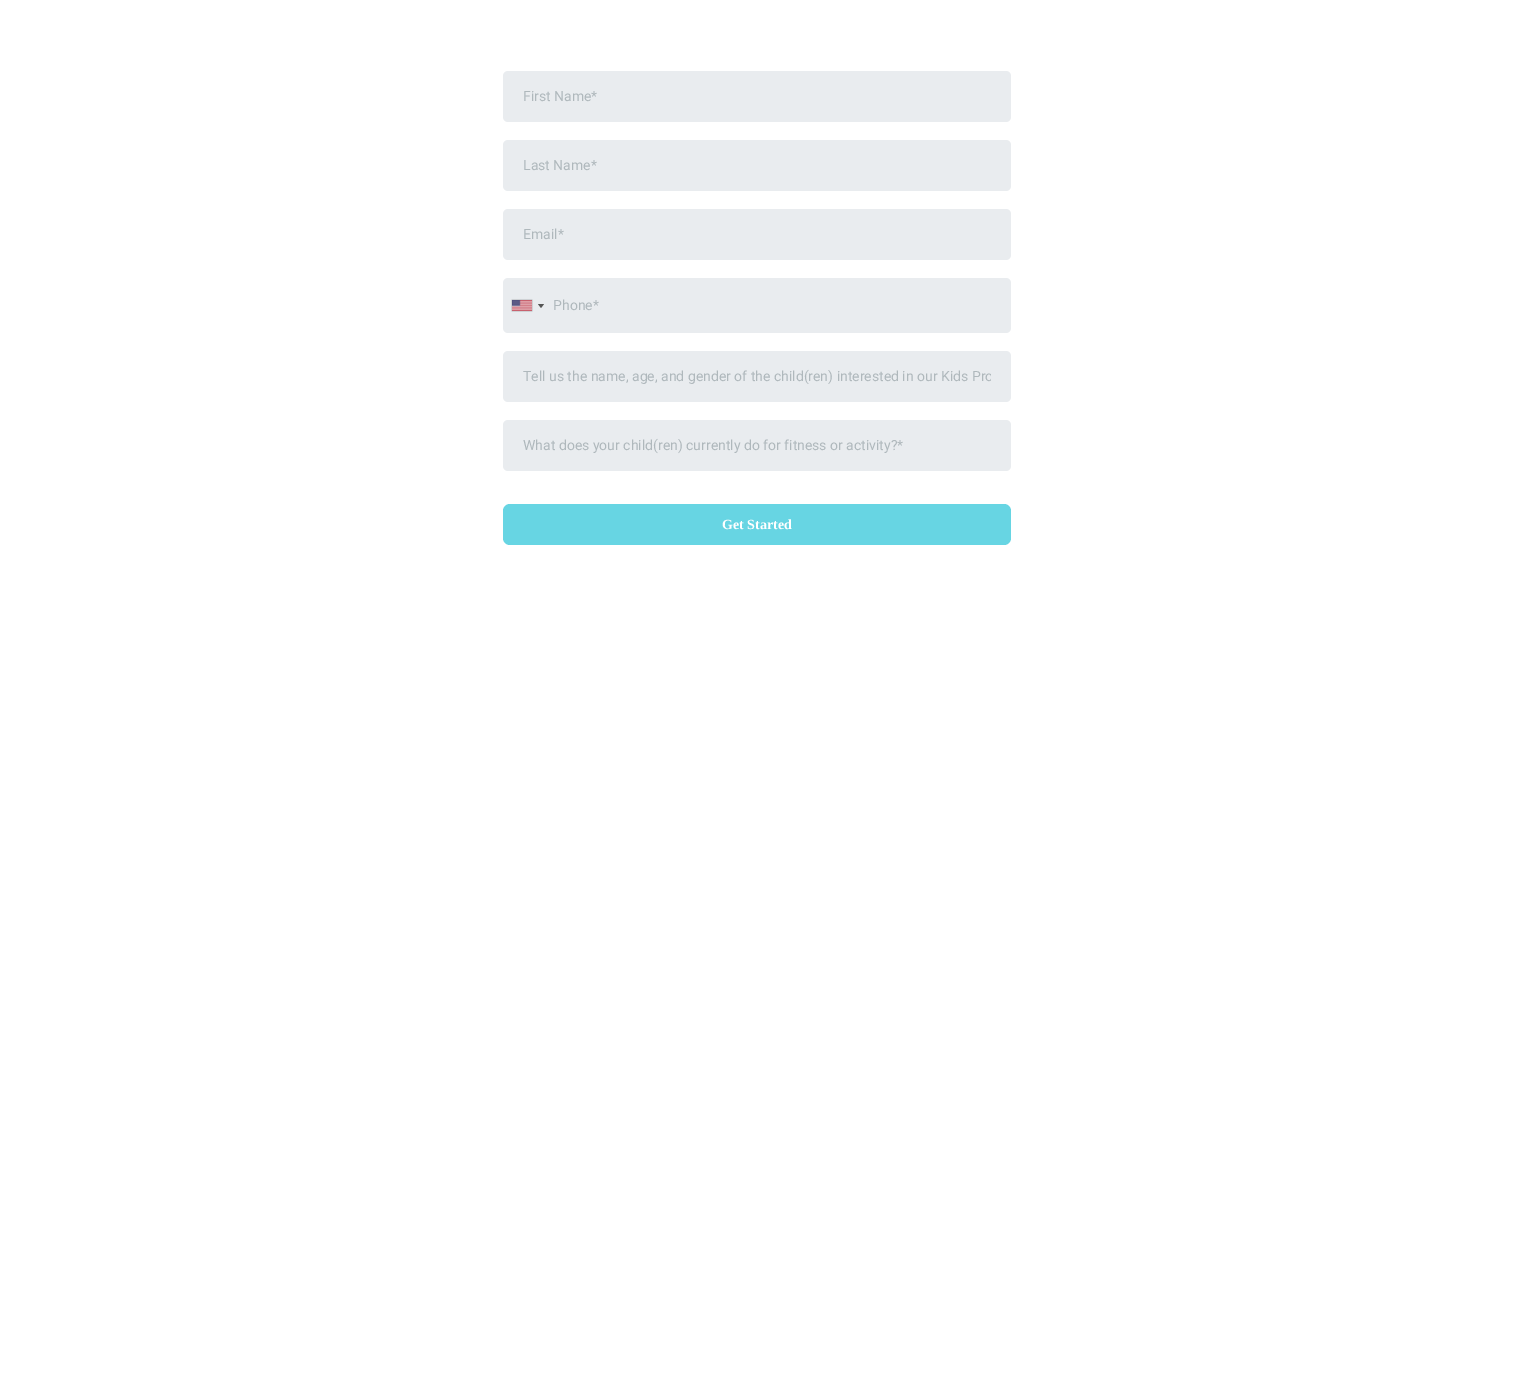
%!PS-Adobe-3.0
%%BoundingBox: 0 0 1514 1397
%%LanguageLevel: 3
%%Pages: 1
%%EndComments
%%BeginProlog
/setalpha { dup .setfillconstantalpha .setstrokeconstantalpha } def
/rrect { 5 dict begin { /r /h /w /y /x } { exch def } forall
  x r add y moveto x w add y 2 copy h add r arct x w add y h add x 1 index r arct
  x y h add x y r arct x y 2 copy exch w add exch r arct closepath end } def
/softshadow { 12 dict begin { /a /b /q /h /w /y /x } { exch def } forall gsave /was 0 def
  9 -2 -9 { dup b mul 4 div /e exch def 1 sub .425 mul 2.718 exch exp 1 add a .99 .min exch div /now exch def
    1 1 now sub 1 was sub div sub setalpha /was now def
    w h .min e 2 mul add 0 gt { x e sub y e sub w e 2 mul add h e 2 mul add
      q e add b .6 mul add w h .min 2 div e add .min 0 .max rrect fill } if } for grestore end } def
/drawimage { 5 dict begin { /h /w /y /x /name } { exch def } forall
  gsave x y translate w h scale
  w h 8 [w 0 0 h 0 0] name (r) file false 3 colorimage grestore end } def
%%EndProlog
%%BeginSetup
<< /PageSize [1514 1397] /PageUsesTransparency true >> setpagedevice
%%EndSetup
%%Page: 1 1
0 .pushpdf14devicefilter
0 1397 translate 1 -1 scale
4 setmiterlimit
1 setgray
0 0 1514 1397 rectfill
0.914 0.925 0.937 setrgbcolor
503 71 508 51 5 rrect fill
503 140 508 51 5 rrect fill
503 209 508 51 5 rrect fill
503 278 508 55 5 rrect fill
0.533 setgray
512 300 20 11 0 0.5 1 softshadow
(images/1.raw) 512 300 20 11 drawimage
0.333 setgray
newpath 538 304 moveto 544 304 lineto 541 308 lineto closepath fill
0.914 0.925 0.937 setrgbcolor
503 351 508 51 5 rrect fill
503 420 508 51 5 rrect fill
0.404 0.835 0.89 setrgbcolor
503 504 508 41 7 rrect fill
/Roboto-Regular [14 0 0 -14 0 0] selectfont
0.686 0.722 0.737 setrgbcolor
523 101 moveto (First Name*) show
523 170 moveto (Last Name*) show
523 239 moveto (Email*) show
553 310 moveto (Phone*) show
gsave
523 368 468 16 rectclip
523 381 moveto (Tell us the name, age, and gender of the child\(ren\) interested in our Kids Pro) show
grestore
523 450 moveto (What does your child\(ren\) currently do for fitness or activity?*) show
/LiberationSerif-Bold [14 0 0 -14 0 0] selectfont
1 setgray
722 529 moveto (Get Started) show
.poppdf14devicefilter showpage
%%EOF
